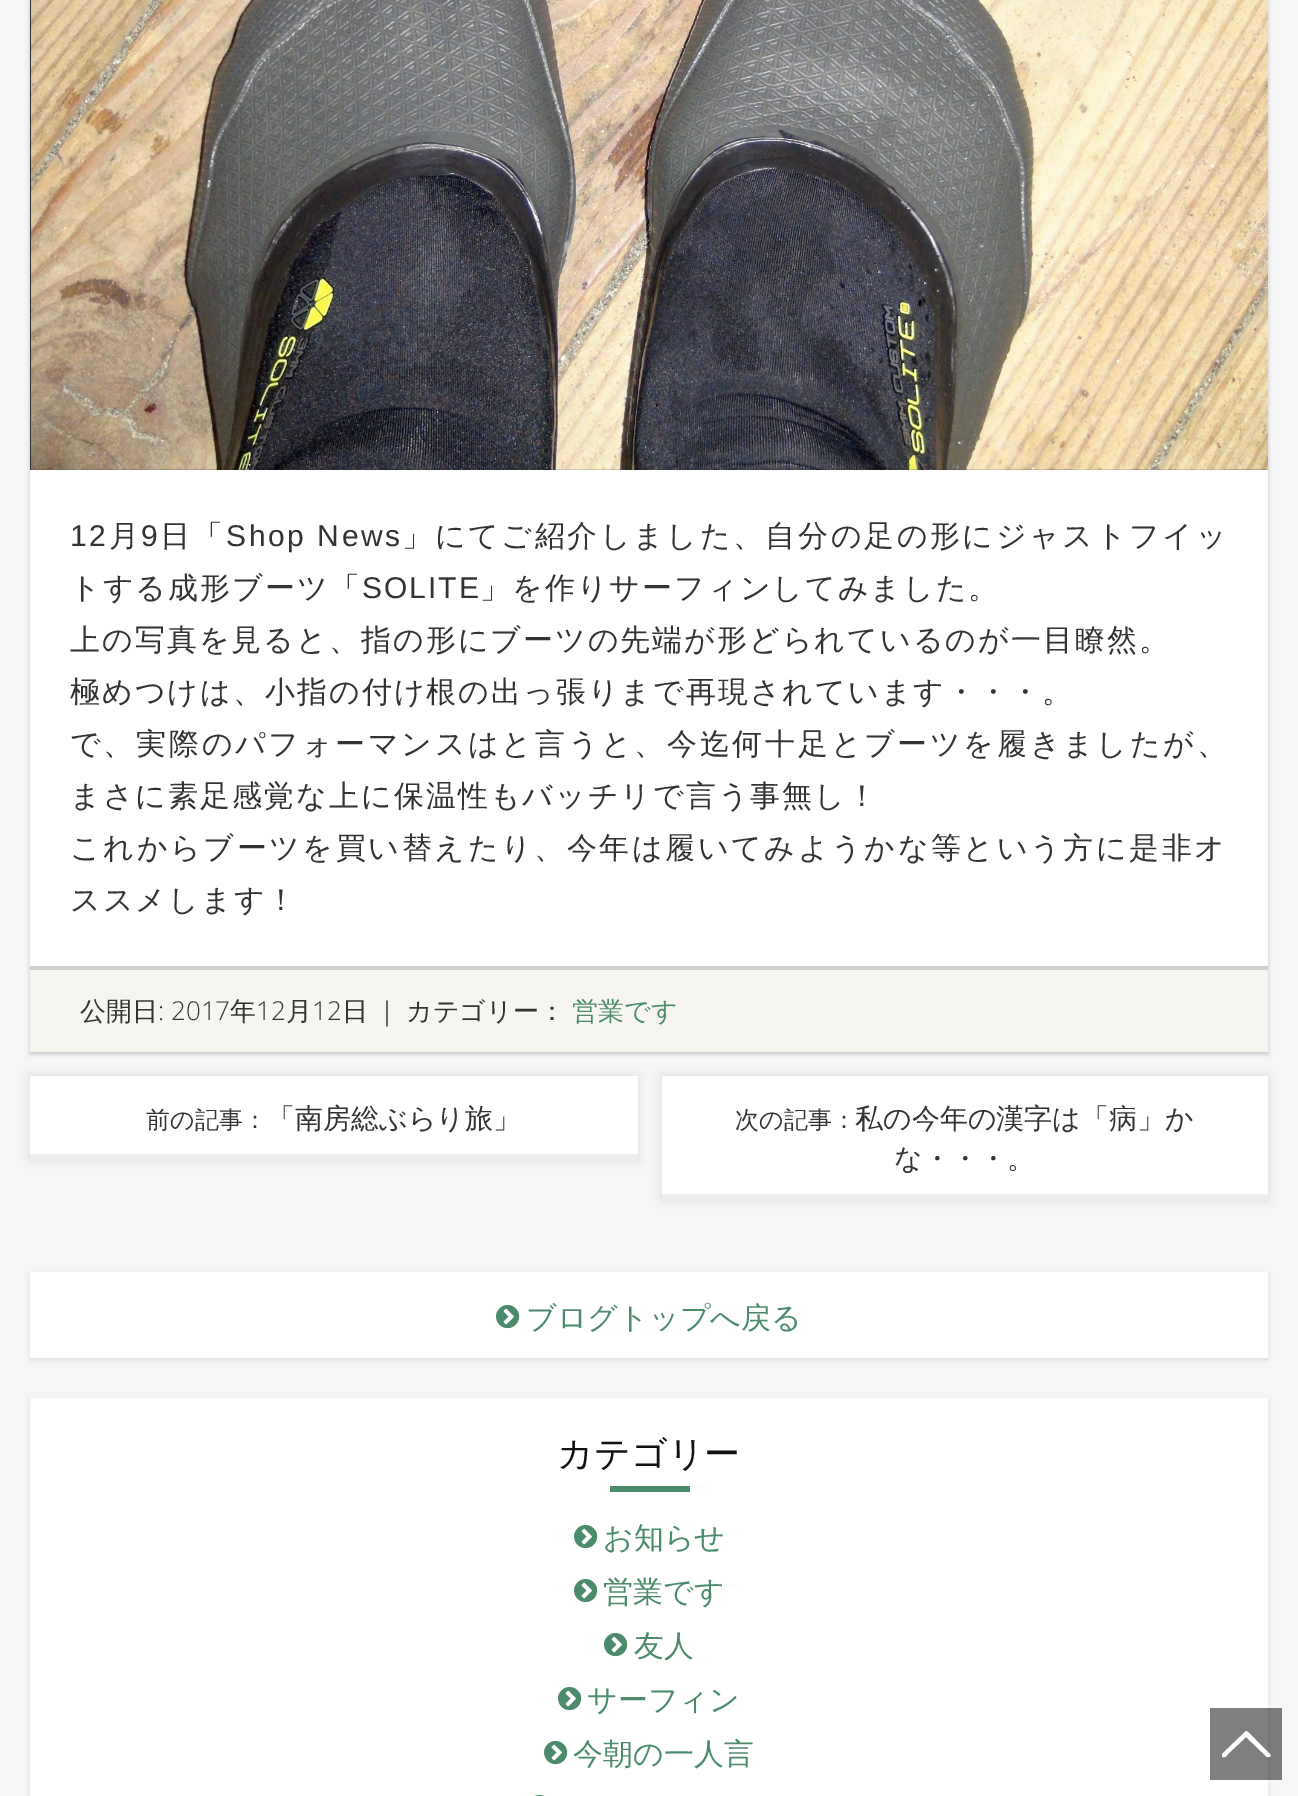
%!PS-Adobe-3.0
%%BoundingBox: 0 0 1298 1796
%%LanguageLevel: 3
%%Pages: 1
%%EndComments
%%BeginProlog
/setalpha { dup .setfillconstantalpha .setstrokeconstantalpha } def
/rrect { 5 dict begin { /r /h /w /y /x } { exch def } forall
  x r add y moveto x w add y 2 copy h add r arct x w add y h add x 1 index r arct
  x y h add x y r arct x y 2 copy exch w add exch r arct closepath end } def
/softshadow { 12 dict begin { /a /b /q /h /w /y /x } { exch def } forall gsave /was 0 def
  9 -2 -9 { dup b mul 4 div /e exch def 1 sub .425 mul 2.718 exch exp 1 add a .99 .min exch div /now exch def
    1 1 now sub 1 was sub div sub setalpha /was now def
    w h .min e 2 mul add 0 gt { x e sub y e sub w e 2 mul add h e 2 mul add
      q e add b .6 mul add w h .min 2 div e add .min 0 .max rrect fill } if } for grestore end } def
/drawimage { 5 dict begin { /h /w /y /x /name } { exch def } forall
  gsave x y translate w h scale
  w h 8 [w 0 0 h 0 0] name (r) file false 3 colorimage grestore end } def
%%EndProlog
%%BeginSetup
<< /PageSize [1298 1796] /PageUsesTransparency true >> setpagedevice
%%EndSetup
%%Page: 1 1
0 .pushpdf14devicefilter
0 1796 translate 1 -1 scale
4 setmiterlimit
0.965 setgray
0 0 1298 1796 rectfill
0 setgray
30 -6 1238 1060 0 2 0.2 softshadow
1 setgray
30 470 1238 496 rectfill
0.2 setgray
30 0 1238 470 rectfill
(images/1.raw) 31 0 1237 470 drawimage
0.965 0.961 0.941 setrgbcolor
30 970 1238 82 rectfill
0.824 0.816 0.804 setrgbcolor
30 966 1238 4 rectfill
0 setgray
30 1076 608 84 0 5 0.1 softshadow
1 setgray
30 1076 608 78 rectfill
0.933 setgray
30 1154 608 6 rectfill
0 setgray
662 1076 606 124 0 5 0.1 softshadow
1 setgray
662 1076 606 118 rectfill
0.933 setgray
662 1194 606 6 rectfill
0 setgray
30 1274 1238 86 0 2 0.1 softshadow
1 setgray
30 1272 1238 86 rectfill
(images/2.raw) 496 1305 24 24 drawimage
0 setgray
30 1400 1238 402 0 2 0.1 softshadow
1 setgray
30 1398 1238 398 rectfill
0.294 0.545 0.424 setrgbcolor
610 1486 80 6 rectfill
(images/2.raw) 574 1525 24 24 drawimage
(images/2.raw) 574 1579 24 24 drawimage
(images/2.raw) 604 1633 24 24 drawimage
(images/2.raw) 558 1687 24 24 drawimage
(images/2.raw) 544 1741 24 24 drawimage
(images/3.raw) 535 1795 10 1 drawimage
0.5 setalpha
0 setgray
1210 1708 72 72 rectfill
1 setalpha
1 setgray
newpath 1267 1757 moveto 1246 1737 lineto 1229 1753 lineto 1228 1754 1224 1760 1222 1756 curveto 1222 1754 lineto 1246 1731 lineto 1248 1731 1254 1738 1255 1739 curveto 1266 1750 lineto 1266 1751 1274 1756 1269 1757 curveto closepath fill
/LiberationSans-Regular [30 0 0 -30 0 0] selectfont
0.2 setgray
70 546 moveto 2.6 0 (12) ashow
/WenQuanYiZenHei-Medium [30 0 0 -30 0 0] selectfont
109 546 moveto 2.6 0 (月) ashow
/LiberationSans-Regular [30 0 0 -30 0 0] selectfont
141 546 moveto 2.6 0 (9) ashow
/WenQuanYiZenHei-Medium [30 0 0 -30 0 0] selectfont
160 546 moveto 2.6 0 (日「) ashow
/LiberationSans-Regular [30 0 0 -30 0 0] selectfont
226 546 moveto 2.6 0 (Shop News) ashow
/WenQuanYiZenHei-Medium [30 0 0 -30 0 0] selectfont
402 546 moveto 2.6 0 (」にてご紹介しました、自分の足の形にジャストフイッ) ashow
70 598 moveto 2 0 (トする成形ブーツ「) ashow
/LiberationSans-Regular [30 0 0 -30 0 0] selectfont
362 598 moveto 2 0 (SOLITE) ashow
/WenQuanYiZenHei-Medium [30 0 0 -30 0 0] selectfont
480 598 moveto 2 0 (」を作りサーフィンしてみました。) ashow
70 650 moveto 2 0 (上の写真を見ると、指の形にブーツの先端が形どられているのが一目瞭然。) ashow
70 702 moveto 2 0 (極めつけは、小指の付け根の出っ張りまで再現されています・・・。) ashow
70 754 moveto 2.7 0 (で、実際のパフォーマンスはと言うと、今迄何十足とブーツを履きましたが、) ashow
70 806 moveto 2 0 (まさに素足感覚な上に保温性もバッチリで言う事無し！) ashow
70 858 moveto 2.6 0 (これからブーツを買い替えたり、今年は履いてみようかな等という方に是非オ) ashow
70 910 moveto 2 0 (ススメします！) ashow
/WenQuanYiZenHei-Medium [26 0 0 -26 0 0] selectfont
80 1020 moveto (公開日) show
/OpenSans-Light [26 0 0 -26 0 0] selectfont
158 1020 moveto (: 2017) show
/WenQuanYiZenHei-Medium [26 0 0 -26 0 0] selectfont
230 1020 moveto (年) show
/OpenSans-Light [26 0 0 -26 0 0] selectfont
256 1020 moveto (12) show
/WenQuanYiZenHei-Medium [26 0 0 -26 0 0] selectfont
286 1020 moveto (月) show
/OpenSans-Light [26 0 0 -26 0 0] selectfont
312 1020 moveto (12) show
/WenQuanYiZenHei-Medium [26 0 0 -26 0 0] selectfont
342 1020 moveto (日) show
374 1020 moveto -1 0 32 (｜ カテゴリー：) widthshow
0.294 0.545 0.424 setrgbcolor
572 1020 moveto (営業です) show
/WenQuanYiZenHei-Medium [24 0 0 -24 0 0] selectfont
0.2 setgray
146 1128 moveto (前の記事：) show
/WenQuanYiZenHei-Medium [28 0 0 -28 0 0] selectfont
267 1128 moveto (「南房総ぶらり旅」) show
/WenQuanYiZenHei-Medium [24 0 0 -24 0 0] selectfont
735 1128 moveto (次の記事：) show
/WenQuanYiZenHei-Medium [28 0 0 -28 0 0] selectfont
855 1128 moveto (私の今年の漢字は「病」か) show
894 1168 moveto (な・・・。) show
/WenQuanYiZenHei-Medium [30 0 0 -30 0 0] selectfont
0.294 0.545 0.424 setrgbcolor
526 1328 moveto (ブログトップへ戻る) show
/WenQuanYiZenHei-Medium [36 0 0 -36 0 0] selectfont
0.067 setgray
557 1466 moveto (カテゴリー) show
/WenQuanYiZenHei-Medium [30 0 0 -30 0 0] selectfont
0.294 0.545 0.424 setrgbcolor
603 1548 moveto (お知らせ) show
603 1602 moveto (営業です) show
634 1656 moveto (友人) show
587 1710 moveto (サーフィン) show
573 1764 moveto (今朝の一人言) show
.poppdf14devicefilter showpage
%%EOF
